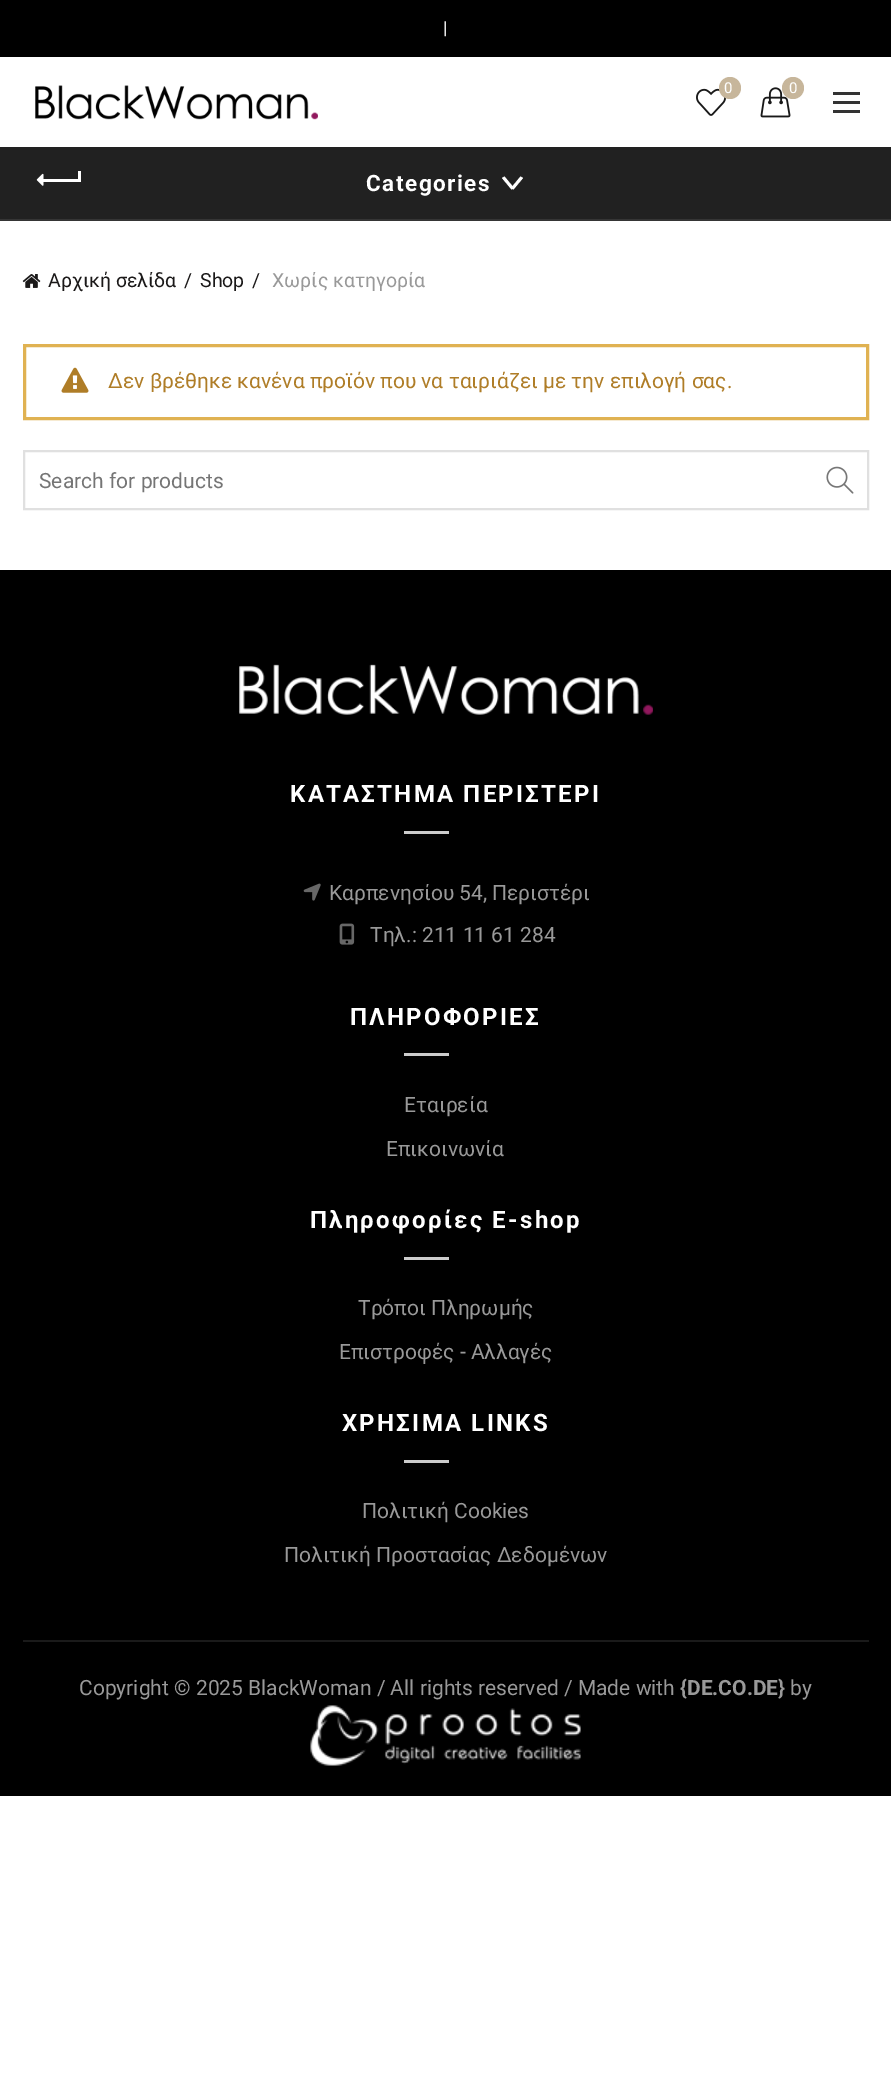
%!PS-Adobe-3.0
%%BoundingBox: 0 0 891 2082
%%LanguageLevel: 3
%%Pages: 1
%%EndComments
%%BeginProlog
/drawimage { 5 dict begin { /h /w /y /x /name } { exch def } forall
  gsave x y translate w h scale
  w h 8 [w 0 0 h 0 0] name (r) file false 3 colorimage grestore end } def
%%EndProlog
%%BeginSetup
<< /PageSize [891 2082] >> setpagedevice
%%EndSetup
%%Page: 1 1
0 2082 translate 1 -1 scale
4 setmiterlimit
1 setgray
0 0 891 2082 rectfill
0 setgray
0 0 891 57 rectfill
(images/1.raw) 35 85 283 35 drawimage
(images/2.raw) 696 88 30 28 drawimage
0.78 0.714 0.608 setrgbcolor
newpath 730 88 11 0 360 arc closepath fill
(images/3.raw) 760 87 31 31 drawimage
newpath 793 88 11 0 360 arc closepath fill
0.2 setgray
833 101 27 3 rectfill
833 92 27 3 rectfill
833 110 27 3 rectfill
0.129 setgray
0 147 891 72 rectfill
0.208 setgray
0 219 891 2 rectfill
1 setgray
42 179 38 3 rectfill
(images/4.raw) 36 173 8 13 drawimage
78 171 3 11 rectfill
newpath 511 188 moveto 520.5 176.5 lineto 523 178 lineto 513.5 189.5 lineto closepath fill
newpath 504.5 176.5 moveto 514 188 lineto 511.5 189.5 lineto 502 178 lineto closepath fill
(images/5.raw) 22 274 19 14 drawimage
0.878 0.698 0.322 setrgbcolor
3 setlinewidth
24.5 345.5 843 73 rectstroke
(images/6.raw) 61 367 28 26 drawimage
0.878 setgray
2 setlinewidth
24 451 844 58 rectstroke
(images/7.raw) 826 466 28 28 drawimage
0 setgray
0 570 891 1226 rectfill
(images/8.raw) 239 664 414 51 drawimage
0.8 setgray
404 831 45 3 rectfill
(images/9.raw) 303 883 18 18 drawimage
(images/10.raw) 339 923 16 22 drawimage
404 1053 45 3 rectfill
404 1257 45 3 rectfill
404 1460 45 3 rectfill
0.102 setgray
23 1640 846 2 rectfill
(images/11.raw) 310 1705 271 61 drawimage
/Roboto-Bold [18 0 0 -18 0 0] selectfont
0.902 setgray
443 34 moveto (|) show
/Roboto-Regular [15 0 0 -15 0 0] selectfont
1 setgray
724 93 moveto (0) show
789 93 moveto (0) show
/Roboto-Bold [22.5 0 0 -22.5 0 0] selectfont
366 191 moveto 1.5 0 (Categories) ashow
/Roboto-Regular [19.5 0 0 -19.5 0 0] selectfont
0.106 0.098 0.098 setrgbcolor
48 287 moveto (Αρχική σελίδα) show
184 287 moveto (/) show
200 287 moveto (Shop) show
252 287 moveto (/) show
0.6 setgray
272 287 moveto (Χωρίς κατηγορία) show
/Roboto-Regular [21 0 0 -21 0 0] selectfont
0.686 0.49 0.153 setrgbcolor
108 388 moveto (Δεν βρέθηκε κανένα προϊόν που να ταιριάζει με την επιλογή σας.) show
0.459 setgray
39 488 moveto (Search for products) show
/Roboto-Bold [24 0 0 -24 0 0] selectfont
1 setgray
290 802 moveto 2.25 0 (ΚΑΤΑΣΤΗΜΑ ΠΕΡΙΣΤΕΡΙ) ashow
/Roboto-Regular [21 0 0 -21 0 0] selectfont
0.6 setgray
329 900 moveto (Καρπενησίου 54, Περιστέρι) show
370 942 moveto (Τηλ.: 211 11 61 284) show
/Roboto-Bold [24 0 0 -24 0 0] selectfont
1 setgray
350 1025 moveto 2.25 0 (ΠΛΗΡΟΦΟΡΙΕΣ) ashow
/Roboto-Regular [21 0 0 -21 0 0] selectfont
0.6 setgray
404 1112 moveto (Εταιρεία) show
386 1156 moveto (Επικοινωνία) show
/Roboto-Bold [24 0 0 -24 0 0] selectfont
1 setgray
310 1228 moveto 2.25 0 (Πληροφορίες E-shop) ashow
/Roboto-Regular [21 0 0 -21 0 0] selectfont
0.6 setgray
358 1315 moveto (Τρόποι Πληρωμής) show
339 1359 moveto (Επιστροφές - Αλλαγές) show
/Roboto-Bold [24 0 0 -24 0 0] selectfont
1 setgray
342 1431 moveto 2.25 0 (ΧΡΗΣΙΜΑ LINKS) ashow
/Roboto-Regular [21 0 0 -21 0 0] selectfont
0.6 setgray
362 1518 moveto (Πολιτική Cookies) show
284 1562 moveto (Πολιτική Προστασίας Δεδομένων) show
79 1695 moveto (Copyright © 2025 BlackWoman / All rights reserved / Made with) show
/Roboto-Bold [21 0 0 -21 0 0] selectfont
680 1695 moveto ({DE.CO.DE}) show
/Roboto-Regular [21 0 0 -21 0 0] selectfont
790 1695 moveto (by) show
showpage
%%EOF
